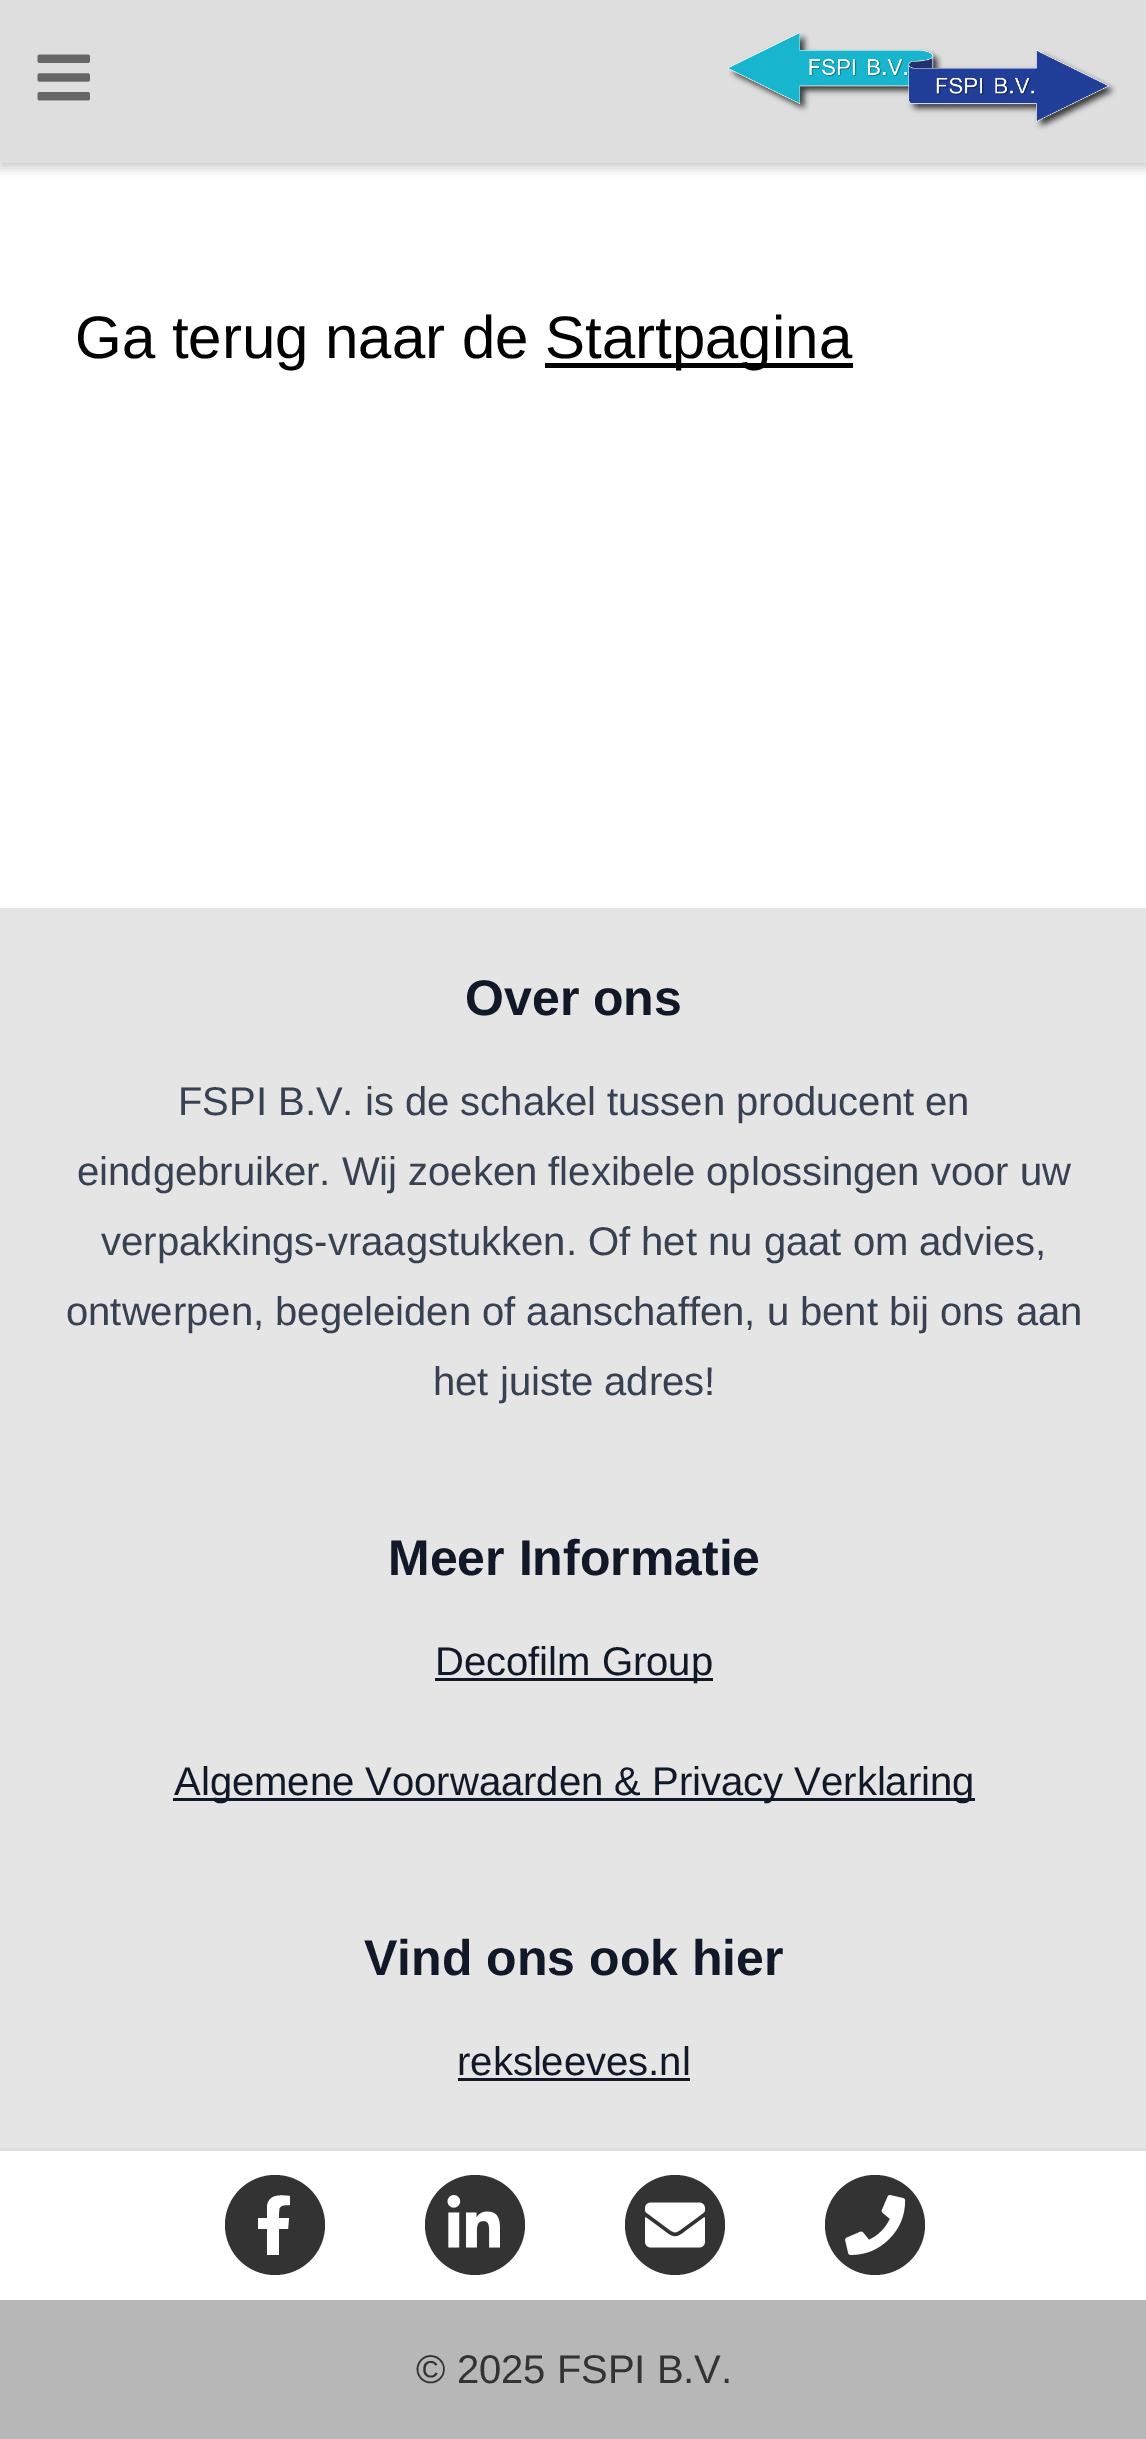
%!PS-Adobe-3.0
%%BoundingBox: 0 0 1146 2439
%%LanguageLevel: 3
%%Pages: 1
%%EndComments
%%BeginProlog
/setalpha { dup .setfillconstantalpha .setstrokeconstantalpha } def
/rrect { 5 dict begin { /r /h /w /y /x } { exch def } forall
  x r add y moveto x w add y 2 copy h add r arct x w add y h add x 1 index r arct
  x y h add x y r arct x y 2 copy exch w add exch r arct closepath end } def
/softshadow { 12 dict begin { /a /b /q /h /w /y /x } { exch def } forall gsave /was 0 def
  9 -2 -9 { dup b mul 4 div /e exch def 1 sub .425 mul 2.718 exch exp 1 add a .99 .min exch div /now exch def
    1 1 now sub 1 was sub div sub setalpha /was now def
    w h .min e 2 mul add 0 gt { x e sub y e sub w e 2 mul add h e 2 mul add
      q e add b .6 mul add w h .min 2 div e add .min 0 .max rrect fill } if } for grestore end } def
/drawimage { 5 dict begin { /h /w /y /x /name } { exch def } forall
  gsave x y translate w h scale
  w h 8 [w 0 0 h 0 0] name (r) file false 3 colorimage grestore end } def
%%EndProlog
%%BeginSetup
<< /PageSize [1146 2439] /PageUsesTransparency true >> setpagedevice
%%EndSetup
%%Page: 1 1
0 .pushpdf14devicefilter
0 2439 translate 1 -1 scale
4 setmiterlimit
1 setgray
0 0 1146 2439 rectfill
0 setgray
0 5 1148 163 0 5 0.2 softshadow
0.871 setgray
0 0 1146 163 rectfill
(images/1.raw) 37 54 53 47 drawimage
(images/2.raw) 727 32 390 98 drawimage
0 setgray
545 363 308 5 rectfill
0.898 setgray
0 908 1146 1240 rectfill
0.067 0.094 0.153 setrgbcolor
435 1678 278 3 rectfill
173 1798 802 3 rectfill
458 2078 232 3 rectfill
0.867 setgray
0 2148 1146 3 rectfill
0.2 setgray
newpath 275 2225 50 0 360 arc closepath fill
1 setgray
newpath 288 2229 moveto 279 2229 lineto 279 2255 lineto 267 2255 lineto 267 2229 lineto 258 2229 lineto 258 2218 lineto 267 2218 lineto 267 2206 lineto 269 2194 280 2195 290 2196 curveto 290 2205 lineto 278 2205 279 2207 279 2218 curveto 289 2218 lineto closepath fill
0.2 setgray
newpath 475 2225 50 0 360 arc closepath fill
(images/3.raw) 447 2195 53 53 drawimage
newpath 675 2225 50 0 360 arc closepath fill
(images/4.raw) 645 2202 60 46 drawimage
newpath 875 2225 50 0 360 arc closepath fill
(images/5.raw) 845 2195 61 60 drawimage
0.718 setgray
0 2300 1146 139 rectfill
/LiberationSans-Regular [60 0 0 -60 0 0] selectfont
0 setgray
75 358 moveto (Ga terug naar de) show
545 358 moveto (Startpagina) show
/LiberationSans-Bold [50 0 0 -50 0 0] selectfont
0.067 0.094 0.153 setrgbcolor
465 1015 moveto (Over ons) show
/LiberationSans-Regular [40 0 0 -40 0 0] selectfont
0.216 0.255 0.318 setrgbcolor
178 1115 moveto (FSPI B.V. is de schakel tussen producent en) show
77 1185 moveto (eindgebruiker. Wij zoeken flexibele oplossingen voor uw) show
101 1255 moveto (verpakkings-vraagstukken. Of het nu gaat om advies,) show
66 1325 moveto (ontwerpen, begeleiden of aanschaffen, u bent bij ons aan) show
433 1395 moveto (het juiste adres!) show
/LiberationSans-Bold [50 0 0 -50 0 0] selectfont
0.067 0.094 0.153 setrgbcolor
388 1575 moveto (Meer Informatie) show
/LiberationSans-Regular [40 0 0 -40 0 0] selectfont
435 1675 moveto (Decofilm Group) show
174 1795 moveto (Algemene Voorwaarden & Privacy Verklaring) show
/LiberationSans-Bold [50 0 0 -50 0 0] selectfont
364 1975 moveto (Vind ons ook hier) show
/LiberationSans-Regular [40 0 0 -40 0 0] selectfont
457 2075 moveto (reksleeves.nl) show
0.2 setgray
416 2383 moveto (© 2025 FSPI B.V.) show
.poppdf14devicefilter showpage
%%EOF
